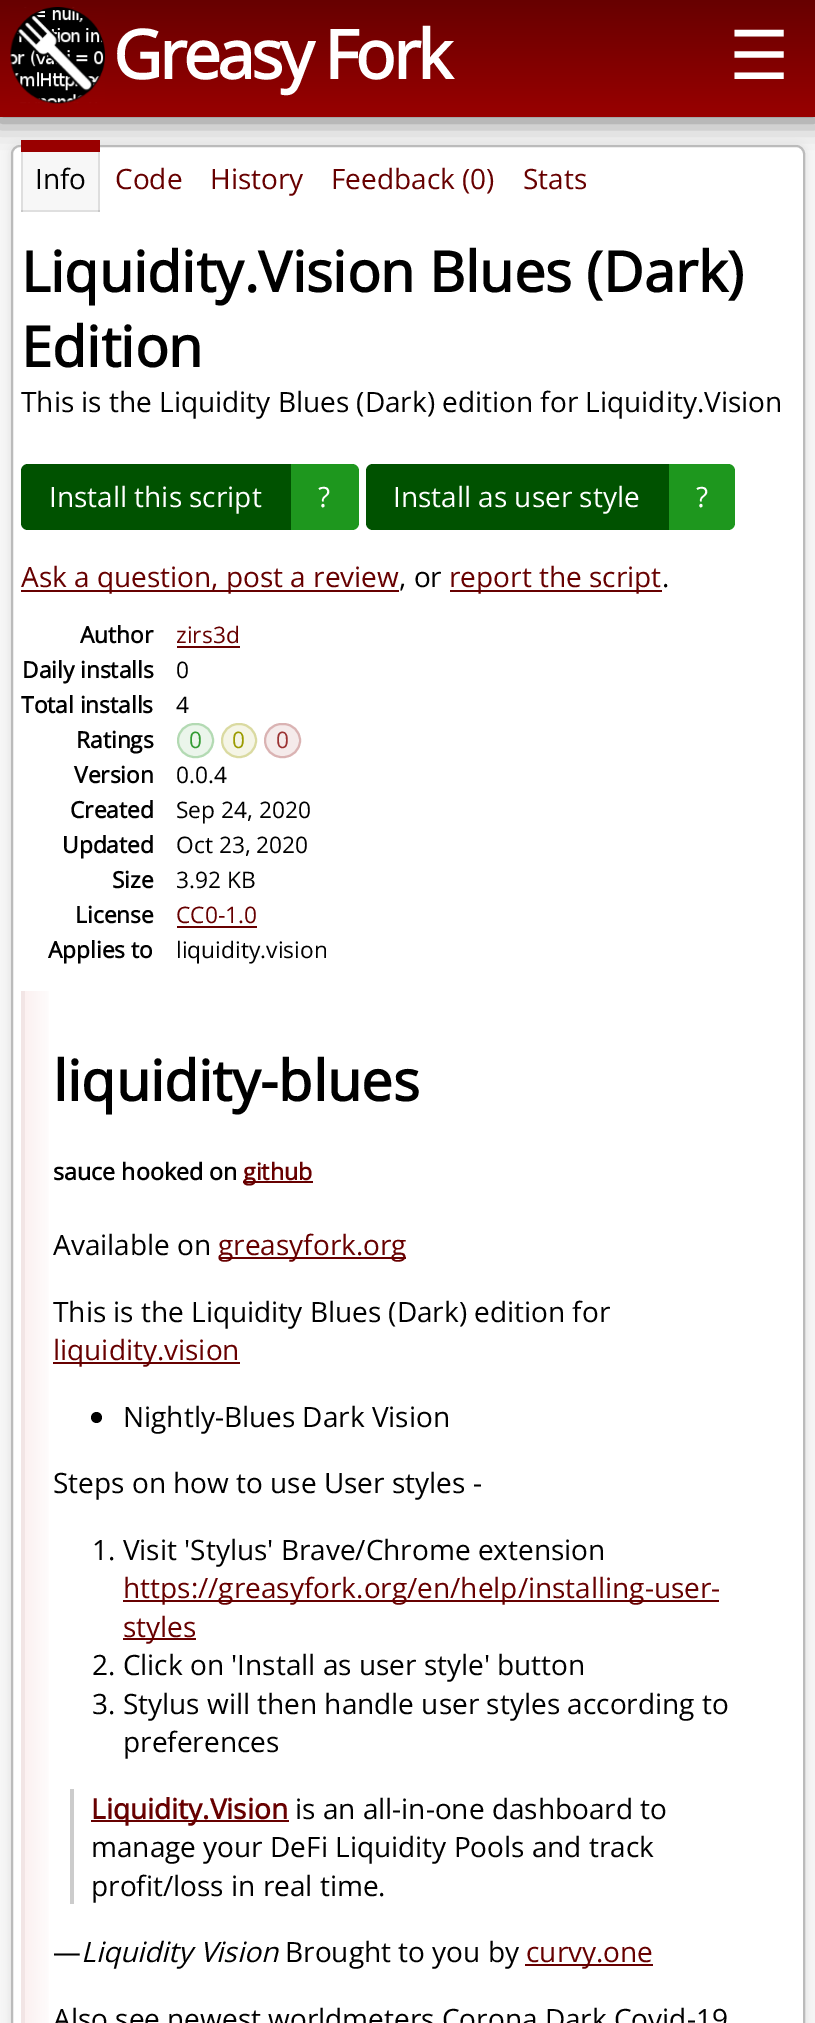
%!PS-Adobe-3.0
%%BoundingBox: 0 0 815 2023
%%LanguageLevel: 3
%%Pages: 1
%%EndComments
%%BeginProlog
/setalpha { dup .setfillconstantalpha .setstrokeconstantalpha } def
/rrect { 5 dict begin { /r /h /w /y /x } { exch def } forall
  x r add y moveto x w add y 2 copy h add r arct x w add y h add x 1 index r arct
  x y h add x y r arct x y 2 copy exch w add exch r arct closepath end } def
/softshadow { 12 dict begin { /a /b /q /h /w /y /x } { exch def } forall gsave /was 0 def
  9 -2 -9 { dup b mul 4 div /e exch def 1 sub .425 mul 2.718 exch exp 1 add a .99 .min exch div /now exch def
    1 1 now sub 1 was sub div sub setalpha /was now def
    w h .min e 2 mul add 0 gt { x e sub y e sub w e 2 mul add h e 2 mul add
      q e add b .6 mul add w h .min 2 div e add .min 0 .max rrect fill } if } for grestore end } def
/drawimage { 5 dict begin { /h /w /y /x /name } { exch def } forall
  gsave x y translate w h scale
  w h 8 [w 0 0 h 0 0] name (r) file false 3 colorimage grestore end } def
%%EndProlog
%%BeginSetup
<< /PageSize [815 2023] /PageUsesTransparency true >> setpagedevice
%%EndSetup
%%Page: 1 1
0 .pushpdf14devicefilter
0 2023 translate 1 -1 scale
4 setmiterlimit
0.965 setgray
0 0 815 2023 rectfill
0 setgray
-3 -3 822 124 0 13 0.5 softshadow
gsave newpath 0 0 moveto 815 0 lineto 815 117 lineto 0 117 lineto closepath clip newpath
<< /ShadingType 2 /ColorSpace /DeviceRGB /Coords [408 0 408 117] /Extend [true true] /Function << /FunctionType 2 /Domain [0 1] /C0 [0.404 0 0] /C1 [0.6 0 0] /N 1 >> >> shfill grestore
(images/1.raw) 10 7 95 97 drawimage
0.867 setgray
11 145 794 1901 9 4.5 1 softshadow
1 setgray
12 146 792 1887 8 rrect gsave fill grestore
0.733 setgray
2 setlinewidth
stroke
0.03 setalpha
0 setgray
21 152 79 58 rectfill
1 setalpha
0.875 setgray
21 210 79 2 rectfill
0.1 setalpha
0 setgray
98 152 2 60 rectfill
21 152 2 60 rectfill
1 setalpha
0.6 0 0 setrgbcolor
21 140 79 12 rectfill
0 0.322 0 setrgbcolor
newpath 28 464 moveto 291 464 lineto 291 530 lineto 28 530 lineto 24 530 21 527 21 523 curveto 21 471 lineto 21 467 24 464 28 464 curveto closepath fill
0.118 0.592 0.118 setrgbcolor
newpath 291 464 moveto 352 464 lineto 356 464 359 467 359 471 curveto 359 523 lineto 359 527 356 530 352 530 curveto 291 530 lineto closepath fill
0 0.322 0 setrgbcolor
newpath 373 464 moveto 669 464 lineto 669 530 lineto 373 530 lineto 369 530 366 527 366 523 curveto 366 471 lineto 366 467 369 464 373 464 curveto closepath fill
0.118 0.592 0.118 setrgbcolor
newpath 669 464 moveto 728 464 lineto 732 464 735 467 735 471 curveto 735 523 lineto 735 527 732 530 728 530 curveto 669 530 lineto closepath fill
0.404 0 0 setrgbcolor
21 590 378 2 rectfill
450 590 212 2 rectfill
177 646 63 2 rectfill
0.922 0.961 0.922 setrgbcolor
177 723 37 35 17.5 rrect fill
0.3 setalpha
0.2 0.608 0.2 setrgbcolor
178 724 35 33 16.5 rrect stroke
1 setalpha
0.961 0.961 0.902 setrgbcolor
221 723 36 35 17.5 rrect fill
0.3 setalpha
0.608 0.608 0 setrgbcolor
222 724 34 33 16.5 rrect stroke
1 setalpha
0.961 0.922 0.922 setrgbcolor
264 723 37 35 17.5 rrect fill
0.3 setalpha
0.608 0.2 0.2 setrgbcolor
265 724 35 33 16.5 rrect stroke
1 setalpha
0.404 0 0 setrgbcolor
177 926 80 2 rectfill
gsave newpath 25 991 moveto 49 991 lineto 49 2023 lineto 25 2023 lineto closepath clip newpath
<< /ShadingType 2 /ColorSpace /DeviceRGB /Coords [24 1540 795 1540] /Extend [true true] /Function << /FunctionType 3 /Domain [0 1] /Functions [<< /FunctionType 2 /Domain [0 1] /C0 [0.988 0.945 0.945] /C1 [1 1 1] /N 1 >> << /FunctionType 2 /Domain [0 1] /C0 [1 1 1] /C1 [1 1 1] /N 1 >>] /Bounds [0.04] /Encode [0 1 0 1] >> >> shfill grestore
0.949 0.898 0.898 setrgbcolor
21 991 4 1032 rectfill
0.404 0 0 setrgbcolor
243 1181 70 2 rectfill
219 1257 187 2 rectfill
53 1362 187 2 rectfill
0 setgray
newpath 96.5 1417.5 5.5 0 360 arc closepath fill
0.404 0 0 setrgbcolor
123 1600 596 2 rectfill
123 1638 73 2 rectfill
0.8 setgray
70 1789 4 115 rectfill
0.404 0 0 setrgbcolor
91 1820 198 2 rectfill
525 1964 128 2 rectfill
/OpenSans-Bold [67.5 0 0 -67.5 0 0] selectfont
1 setgray
113 79 moveto -3.5 0 (Greasy Fork) ashow
/DejaVuSans-Regular [67.5 0 0 -67.5 0 0] selectfont
729 79 moveto (☰) show
/OpenSans-Regular [28 0 0 -28 0 0] selectfont
0 setgray
35 189 moveto (Info) show
0.404 0 0 setrgbcolor
115 189 moveto (Code) show
210 189 moveto (History) show
331 189 moveto (Feedback \(0\)) show
523 189 moveto (Stats) show
/OpenSans-Bold [56 0 0 -56 0 0] selectfont
0 setgray
21 292 moveto (Liquidity.Vision Blues \(Dark\)) show
21 367 moveto (Edition) show
/OpenSans-Regular [28 0 0 -28 0 0] selectfont
21 412 moveto (This is the Liquidity Blues \(Dark\) edition for Liquidity.Vision) show
1 setgray
49 507 moveto (Install this script) show
318 507 moveto (?) show
393 507 moveto (Install as user style) show
696 507 moveto (?) show
0.404 0 0 setrgbcolor
21 587 moveto (Ask a question, post a review) show
0 setgray
399 587 moveto (, or) show
0.404 0 0 setrgbcolor
449 587 moveto (report the script) show
0 setgray
662 587 moveto (.) show
/OpenSans-Bold [22.75 0 0 -22.75 0 0] selectfont
80 643 moveto (Author) show
/OpenSans-Regular [22.75 0 0 -22.75 0 0] selectfont
0.404 0 0 setrgbcolor
176 643 moveto (zirs3d) show
/OpenSans-Bold [22.75 0 0 -22.75 0 0] selectfont
0 setgray
22 678 moveto (Daily installs) show
/OpenSans-Regular [22.75 0 0 -22.75 0 0] selectfont
176 678 moveto (0) show
/OpenSans-Bold [22.75 0 0 -22.75 0 0] selectfont
21 713 moveto (Total installs) show
/OpenSans-Regular [22.75 0 0 -22.75 0 0] selectfont
176 713 moveto (4) show
/OpenSans-Bold [22.75 0 0 -22.75 0 0] selectfont
76 748 moveto (Ratings) show
/OpenSans-Regular [22.75 0 0 -22.75 0 0] selectfont
0.2 0.608 0.2 setrgbcolor
189 748 moveto (0) show
0.608 0.608 0 setrgbcolor
232 748 moveto (0) show
0.608 0.2 0.2 setrgbcolor
276 748 moveto (0) show
/OpenSans-Bold [22.75 0 0 -22.75 0 0] selectfont
0 setgray
74 783 moveto (Version) show
/OpenSans-Regular [22.75 0 0 -22.75 0 0] selectfont
176 783 moveto (0.0.4) show
/OpenSans-Bold [22.75 0 0 -22.75 0 0] selectfont
70 818 moveto (Created) show
/OpenSans-Regular [22.75 0 0 -22.75 0 0] selectfont
176 818 moveto (Sep 24, 2020) show
/OpenSans-Bold [22.75 0 0 -22.75 0 0] selectfont
62 853 moveto (Updated) show
/OpenSans-Regular [22.75 0 0 -22.75 0 0] selectfont
176 853 moveto (Oct 23, 2020) show
/OpenSans-Bold [22.75 0 0 -22.75 0 0] selectfont
112 888 moveto (Size) show
/OpenSans-Regular [22.75 0 0 -22.75 0 0] selectfont
176 888 moveto (3.92 KB) show
/OpenSans-Bold [22.75 0 0 -22.75 0 0] selectfont
75 923 moveto (License) show
/OpenSans-Regular [22.75 0 0 -22.75 0 0] selectfont
0.404 0 0 setrgbcolor
176 923 moveto (CC0-1.0) show
/OpenSans-Bold [22.75 0 0 -22.75 0 0] selectfont
0 setgray
48 958 moveto (Applies to) show
/OpenSans-Regular [22.75 0 0 -22.75 0 0] selectfont
176 958 moveto (liquidity.vision) show
/OpenSans-Bold [56 0 0 -56 0 0] selectfont
53 1101 moveto (liquidity-blues) show
/OpenSans-Bold [23.25 0 0 -23.25 0 0] selectfont
53 1180 moveto (sauce hooked on) show
0.404 0 0 setrgbcolor
243 1180 moveto (github) show
/OpenSans-Regular [28 0 0 -28 0 0] selectfont
0 setgray
53 1255 moveto (Available on) show
0.404 0 0 setrgbcolor
218 1255 moveto (greasyfork.org) show
0 setgray
53 1322 moveto (This is the Liquidity Blues \(Dark\) edition for) show
0.404 0 0 setrgbcolor
53 1360 moveto (liquidity.vision) show
0 setgray
123 1427 moveto (Nightly-Blues Dark Vision) show
53 1493 moveto (Steps on how to use User styles -) show
92 1560 moveto (1. Visit 'Stylus' Brave/Chrome extension) show
0.404 0 0 setrgbcolor
123 1598 moveto (https://greasyfork.org/en/help/installing-user-) show
123 1637 moveto (styles) show
0 setgray
92 1675 moveto (2. Click on 'Install as user style' button) show
92 1714 moveto (3. Stylus will then handle user styles according to) show
123 1752 moveto (preferences) show
/OpenSans-Bold [28 0 0 -28 0 0] selectfont
0.404 0 0 setrgbcolor
91 1819 moveto (Liquidity.Vision) show
/OpenSans-Regular [28 0 0 -28 0 0] selectfont
0 setgray
295 1819 moveto (is an all-in-one dashboard to) show
91 1857 moveto (manage your DeFi Liquidity Pools and track) show
91 1896 moveto (profit/loss in real time.) show
53 1962 moveto (—) show
/OpenSans-Italic [28 0 0 -28 0 0] selectfont
81 1962 moveto (Liquidity Vision) show
/OpenSans-Regular [28 0 0 -28 0 0] selectfont
285 1962 moveto (Brought to you by) show
0.404 0 0 setrgbcolor
526 1962 moveto (curvy.one) show
0 setgray
53 2029 moveto (Also see newest worldmeters Corona Dark Covid-19) show
.poppdf14devicefilter showpage
%%EOF
